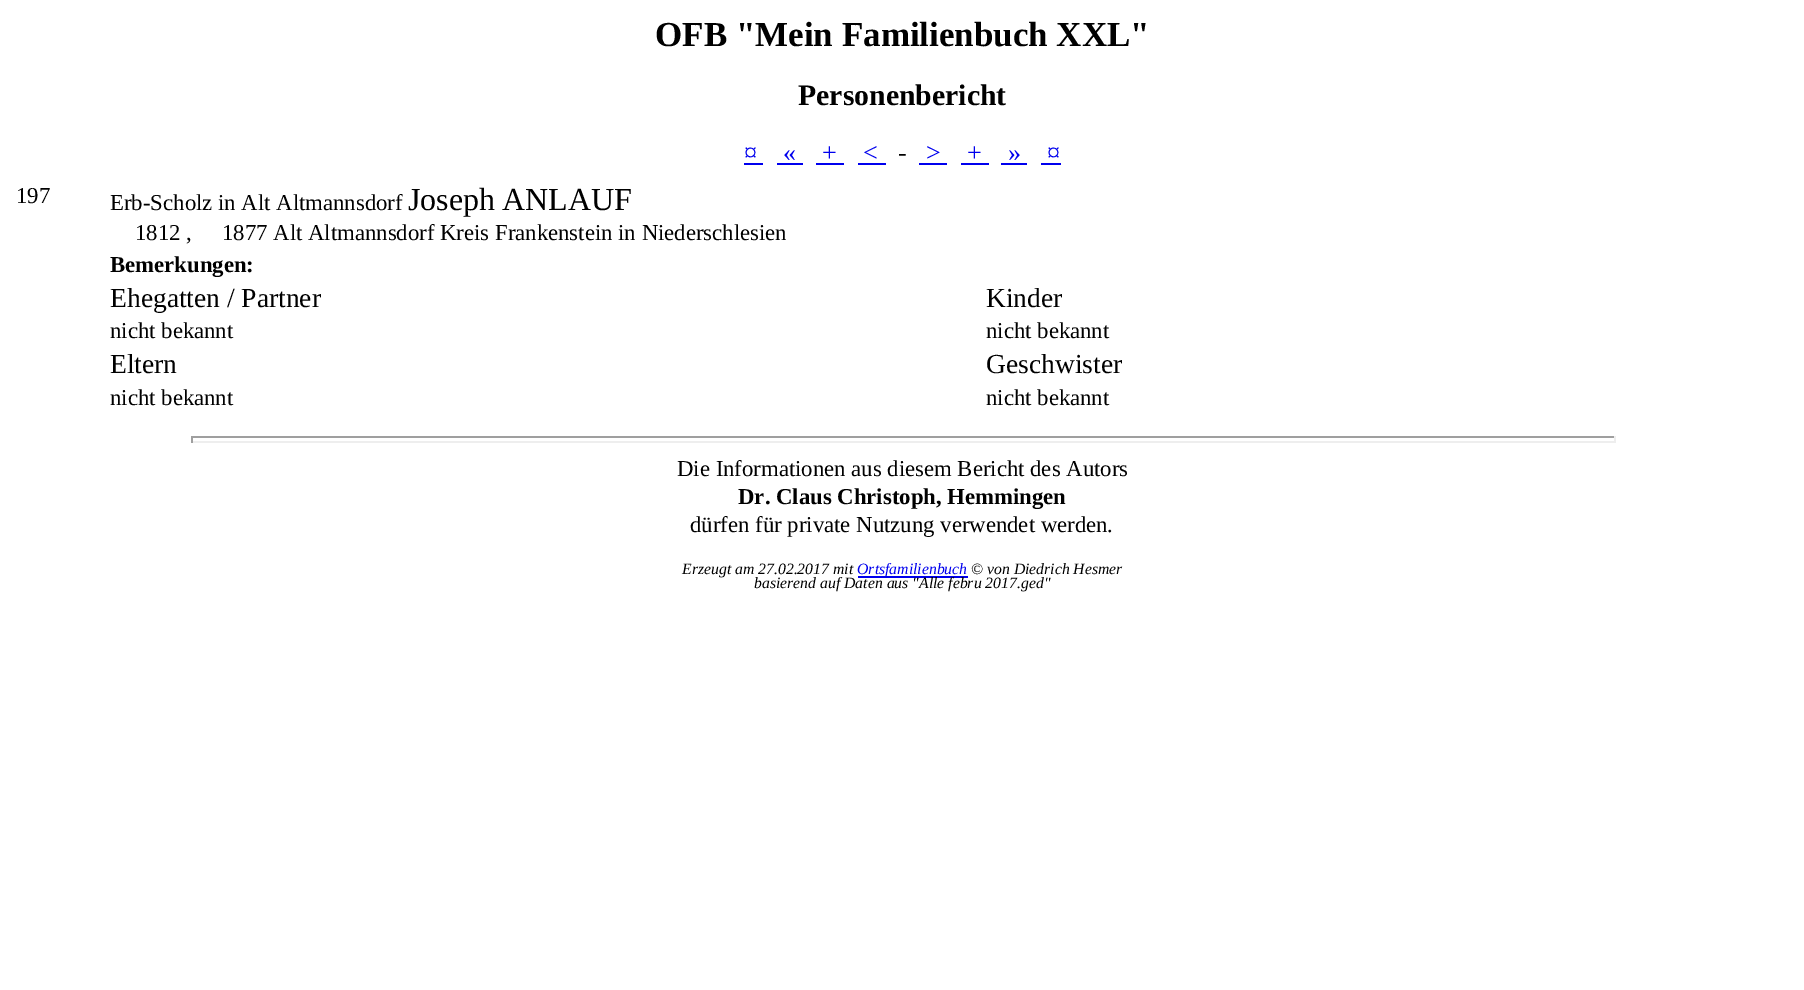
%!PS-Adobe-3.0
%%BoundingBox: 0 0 1804 990
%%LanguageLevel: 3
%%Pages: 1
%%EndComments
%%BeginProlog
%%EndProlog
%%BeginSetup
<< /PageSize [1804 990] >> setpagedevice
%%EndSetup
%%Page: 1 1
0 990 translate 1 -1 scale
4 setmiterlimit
1 setgray
0 0 1804 990 rectfill
0 0 0.933 setrgbcolor
744 163 19 2 rectfill
777 163 26 2 rectfill
816 163 28 2 rectfill
858 163 28 2 rectfill
919 163 28 2 rectfill
961 163 28 2 rectfill
1001 163 26 2 rectfill
1041 163 20 2 rectfill
0.624 setgray
191 436 1424 2 rectfill
0.933 setgray
1614 436 2 7 rectfill
191 441 1424 2 rectfill
0.624 setgray
191 436 2 7 rectfill
0 0 0.933 setrgbcolor
858 576 110 2 rectfill
/LiberationSerif-Bold [35 0 0 -35 0 0] selectfont
0 setgray
655 46 moveto (OFB "Mein Familienbuch XXL") show
/LiberationSerif-Bold [29.75 0 0 -29.75 0 0] selectfont
798 105 moveto (Personenbericht) show
/LiberationSerif-Regular [26 0 0 -26 0 0] selectfont
0 0 0.933 setrgbcolor
744 161 moveto (¤) show
783 161 moveto («) show
822 161 moveto (+) show
863 161 moveto (<) show
0 setgray
898 161 moveto (-) show
0 0 0.933 setrgbcolor
926 161 moveto (>) show
967 161 moveto (+) show
1008 161 moveto (») show
1047 161 moveto (¤) show
/LiberationSerif-Regular [22.75 0 0 -22.75 0 0] selectfont
0 setgray
16 203 moveto (197) show
110 210 moveto (Erb-Scholz in Alt Altmannsdorf) show
/LiberationSerif-Regular [32 0 0 -32 0 0] selectfont
408 210 moveto (Joseph) show
502 210 moveto (ANLAUF) show
/LiberationSerif-Regular [22.75 0 0 -22.75 0 0] selectfont
135 240 moveto (1812 ,) show
222 240 moveto (1877 Alt Altmannsdorf Kreis Frankenstein in Niederschlesien) show
/LiberationSerif-Bold [22.75 0 0 -22.75 0 0] selectfont
110 272 moveto (Bemerkungen:) show
/LiberationSerif-Regular [27.5 0 0 -27.5 0 0] selectfont
110 307 moveto (Ehegatten / Partner) show
986 307 moveto (Kinder) show
/LiberationSerif-Regular [22.75 0 0 -22.75 0 0] selectfont
110 338 moveto (nicht bekannt) show
986 338 moveto (nicht bekannt) show
/LiberationSerif-Regular [27.5 0 0 -27.5 0 0] selectfont
110 373 moveto (Eltern) show
986 373 moveto (Geschwister) show
/LiberationSerif-Regular [22.75 0 0 -22.75 0 0] selectfont
110 405 moveto (nicht bekannt) show
986 405 moveto (nicht bekannt) show
677 476 moveto (Die Informationen aus diesem Bericht des Autors) show
/LiberationSerif-Bold [22.75 0 0 -22.75 0 0] selectfont
738 504 moveto (Dr. Claus Christoph, Hemmingen) show
/LiberationSerif-Regular [22.75 0 0 -22.75 0 0] selectfont
690 532 moveto (dürfen für private Nutzung verwendet werden.) show
/LiberationSerif-Italic [15.75 0 0 -15.75 0 0] selectfont
682 574 moveto (Erzeugt am 27.02.2017 mit) show
0 0 0.933 setrgbcolor
857 574 moveto (Ortsfamilienbuch) show
0 setgray
971 574 moveto (© von Diedrich Hesmer) show
754 588 moveto (basierend auf Daten aus "Alle febru 2017.ged") show
showpage
%%EOF
